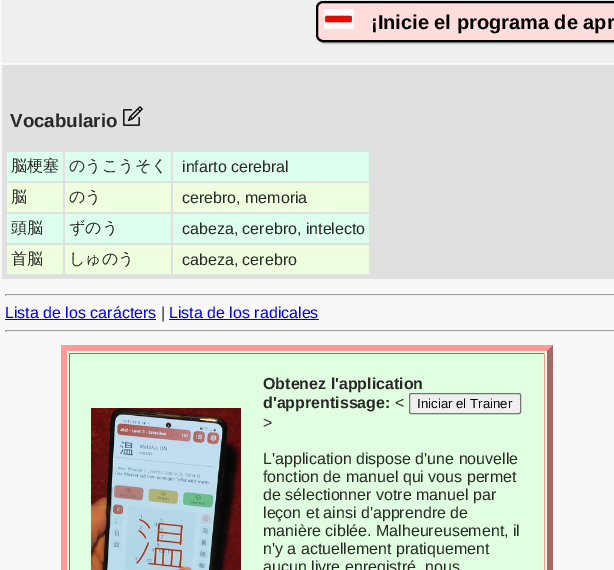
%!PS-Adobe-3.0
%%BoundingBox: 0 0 614 570
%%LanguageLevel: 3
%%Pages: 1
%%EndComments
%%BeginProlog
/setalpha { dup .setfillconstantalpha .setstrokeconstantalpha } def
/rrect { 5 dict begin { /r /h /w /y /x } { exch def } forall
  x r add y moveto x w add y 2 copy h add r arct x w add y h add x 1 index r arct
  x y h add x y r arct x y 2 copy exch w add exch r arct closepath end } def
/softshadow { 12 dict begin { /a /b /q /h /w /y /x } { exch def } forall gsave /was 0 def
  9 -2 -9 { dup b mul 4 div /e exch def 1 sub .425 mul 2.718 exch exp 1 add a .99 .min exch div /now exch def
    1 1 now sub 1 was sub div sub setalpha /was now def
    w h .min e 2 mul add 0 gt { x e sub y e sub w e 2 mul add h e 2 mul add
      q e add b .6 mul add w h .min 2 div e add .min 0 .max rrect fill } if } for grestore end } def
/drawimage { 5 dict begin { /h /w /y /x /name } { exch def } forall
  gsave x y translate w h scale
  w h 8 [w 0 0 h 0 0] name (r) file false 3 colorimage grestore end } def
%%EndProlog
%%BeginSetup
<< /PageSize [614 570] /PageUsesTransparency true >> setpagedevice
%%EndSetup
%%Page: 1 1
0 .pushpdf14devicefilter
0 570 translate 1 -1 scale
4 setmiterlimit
0.973 setgray
0 0 614 570 rectfill
0.937 setgray
2 0 612 63 rectfill
0 setgray
318 2 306 41 7 1 0.5 softshadow
1 0.867 0.867 setrgbcolor
317 2 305 39 6 rrect gsave fill grestore
0 setgray
2 setlinewidth
stroke
(images/1.raw) 324 9 30 20 drawimage
0.878 setgray
2 65 612 214 rectfill
(images/2.raw) 123 106 20 20 drawimage
0.867 1 0.933 setrgbcolor
7 152 56 29 rectfill
65 152 106 29 rectfill
173 152 196 29 rectfill
0.933 1 0.867 setrgbcolor
7 183 56 29 rectfill
65 183 106 29 rectfill
173 183 196 29 rectfill
0.867 1 0.933 setrgbcolor
7 214 56 29 rectfill
65 214 106 29 rectfill
173 214 196 29 rectfill
0.933 1 0.867 setrgbcolor
7 245 56 29 rectfill
65 245 106 29 rectfill
173 245 196 29 rectfill
0.624 setgray
5 294 609 1 rectfill
0.933 setgray
5 295 609 1 rectfill
0.624 setgray
5 294 1 2 rectfill
0 0 0.933 setrgbcolor
5 319 151 1 rectfill
169 319 150 1 rectfill
0.624 setgray
5 330 609 1 rectfill
0.933 setgray
5 331 609 1 rectfill
0.624 setgray
5 330 1 2 rectfill
0.878 1 0.878 setrgbcolor
61 345 492 225 rectfill
1 0.6 0.6 setrgbcolor
newpath 61 345 moveto 553 345 lineto 547 351 lineto 67 351 lineto closepath fill
0.667 0.4 0.4 setrgbcolor
newpath 553 345 moveto 553 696 lineto 547 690 lineto 547 351 lineto closepath fill
1 0.6 0.6 setrgbcolor
newpath 61 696 moveto 61 345 lineto 67 351 lineto 67 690 lineto closepath fill
0.667 0.4 0.4 setrgbcolor
69 353 476 1 rectfill
1 0.6 0.6 setrgbcolor
544 353 1 217 rectfill
0.667 0.4 0.4 setrgbcolor
69 353 1 217 rectfill
(images/3.raw) 91 408 150 162 drawimage
0.937 setgray
409.5 393.5 111 20 1.5 rrect gsave fill grestore
0.463 setgray
1 setlinewidth
stroke
/LiberationSans-Bold [20 0 0 -20 0 0] selectfont
0 setgray
371 29 moveto (¡Inicie el programa de apr) show
/LiberationSans-Bold [18.75 0 0 -18.75 0 0] selectfont
0.157 setgray
10 127 moveto (Vocabulario) show
/WenQuanYiZenHei-Medium [16 0 0 -16 0 0] selectfont
11 171 moveto (脳梗塞) show
69 171 moveto (のうこうそく) show
/LiberationSans-Regular [16 0 0 -16 0 0] selectfont
182 172 moveto (infarto cerebral) show
/WenQuanYiZenHei-Medium [16 0 0 -16 0 0] selectfont
11 202 moveto (脳) show
69 202 moveto (のう) show
/LiberationSans-Regular [16 0 0 -16 0 0] selectfont
182 203 moveto (cerebro, memoria) show
/WenQuanYiZenHei-Medium [16 0 0 -16 0 0] selectfont
11 233 moveto (頭脳) show
69 233 moveto (ずのう) show
/LiberationSans-Regular [16 0 0 -16 0 0] selectfont
182 234 moveto (cabeza, cerebro, intelecto) show
/WenQuanYiZenHei-Medium [16 0 0 -16 0 0] selectfont
11 264 moveto (首脳) show
69 264 moveto (しゅのう) show
/LiberationSans-Regular [16 0 0 -16 0 0] selectfont
182 265 moveto (cabeza, cerebro) show
0 0 0.933 setrgbcolor
5 318 moveto (Lista de los carácters) show
0.157 setgray
161 318 moveto (|) show
0 0 0.933 setrgbcolor
169 318 moveto (Lista de los radicales) show
/LiberationSans-Bold [16 0 0 -16 0 0] selectfont
0.157 setgray
263 389 moveto (Obtenez l'application) show
263 408 moveto (d'apprentissage:) show
/LiberationSans-Regular [16 0 0 -16 0 0] selectfont
395 408 moveto (<) show
/LiberationSans-Regular [13.25 0 0 -13.25 0 0] selectfont
0 setgray
417 408 moveto (Iniciar el Trainer) show
/LiberationSans-Regular [16 0 0 -16 0 0] selectfont
0.157 setgray
263 428 moveto (>) show
263 464 moveto (L'application dispose d'une nouvelle) show
263 482 moveto (fonction de manuel qui vous permet) show
263 500 moveto (de sélectionner votre manuel par) show
263 518 moveto (leçon et ainsi d'apprendre de) show
263 536 moveto (manière ciblée. Malheureusement, il) show
263 554 moveto (n'y a actuellement pratiquement) show
263 572 moveto (aucun livre enregistré, nous) show
.poppdf14devicefilter showpage
%%EOF
